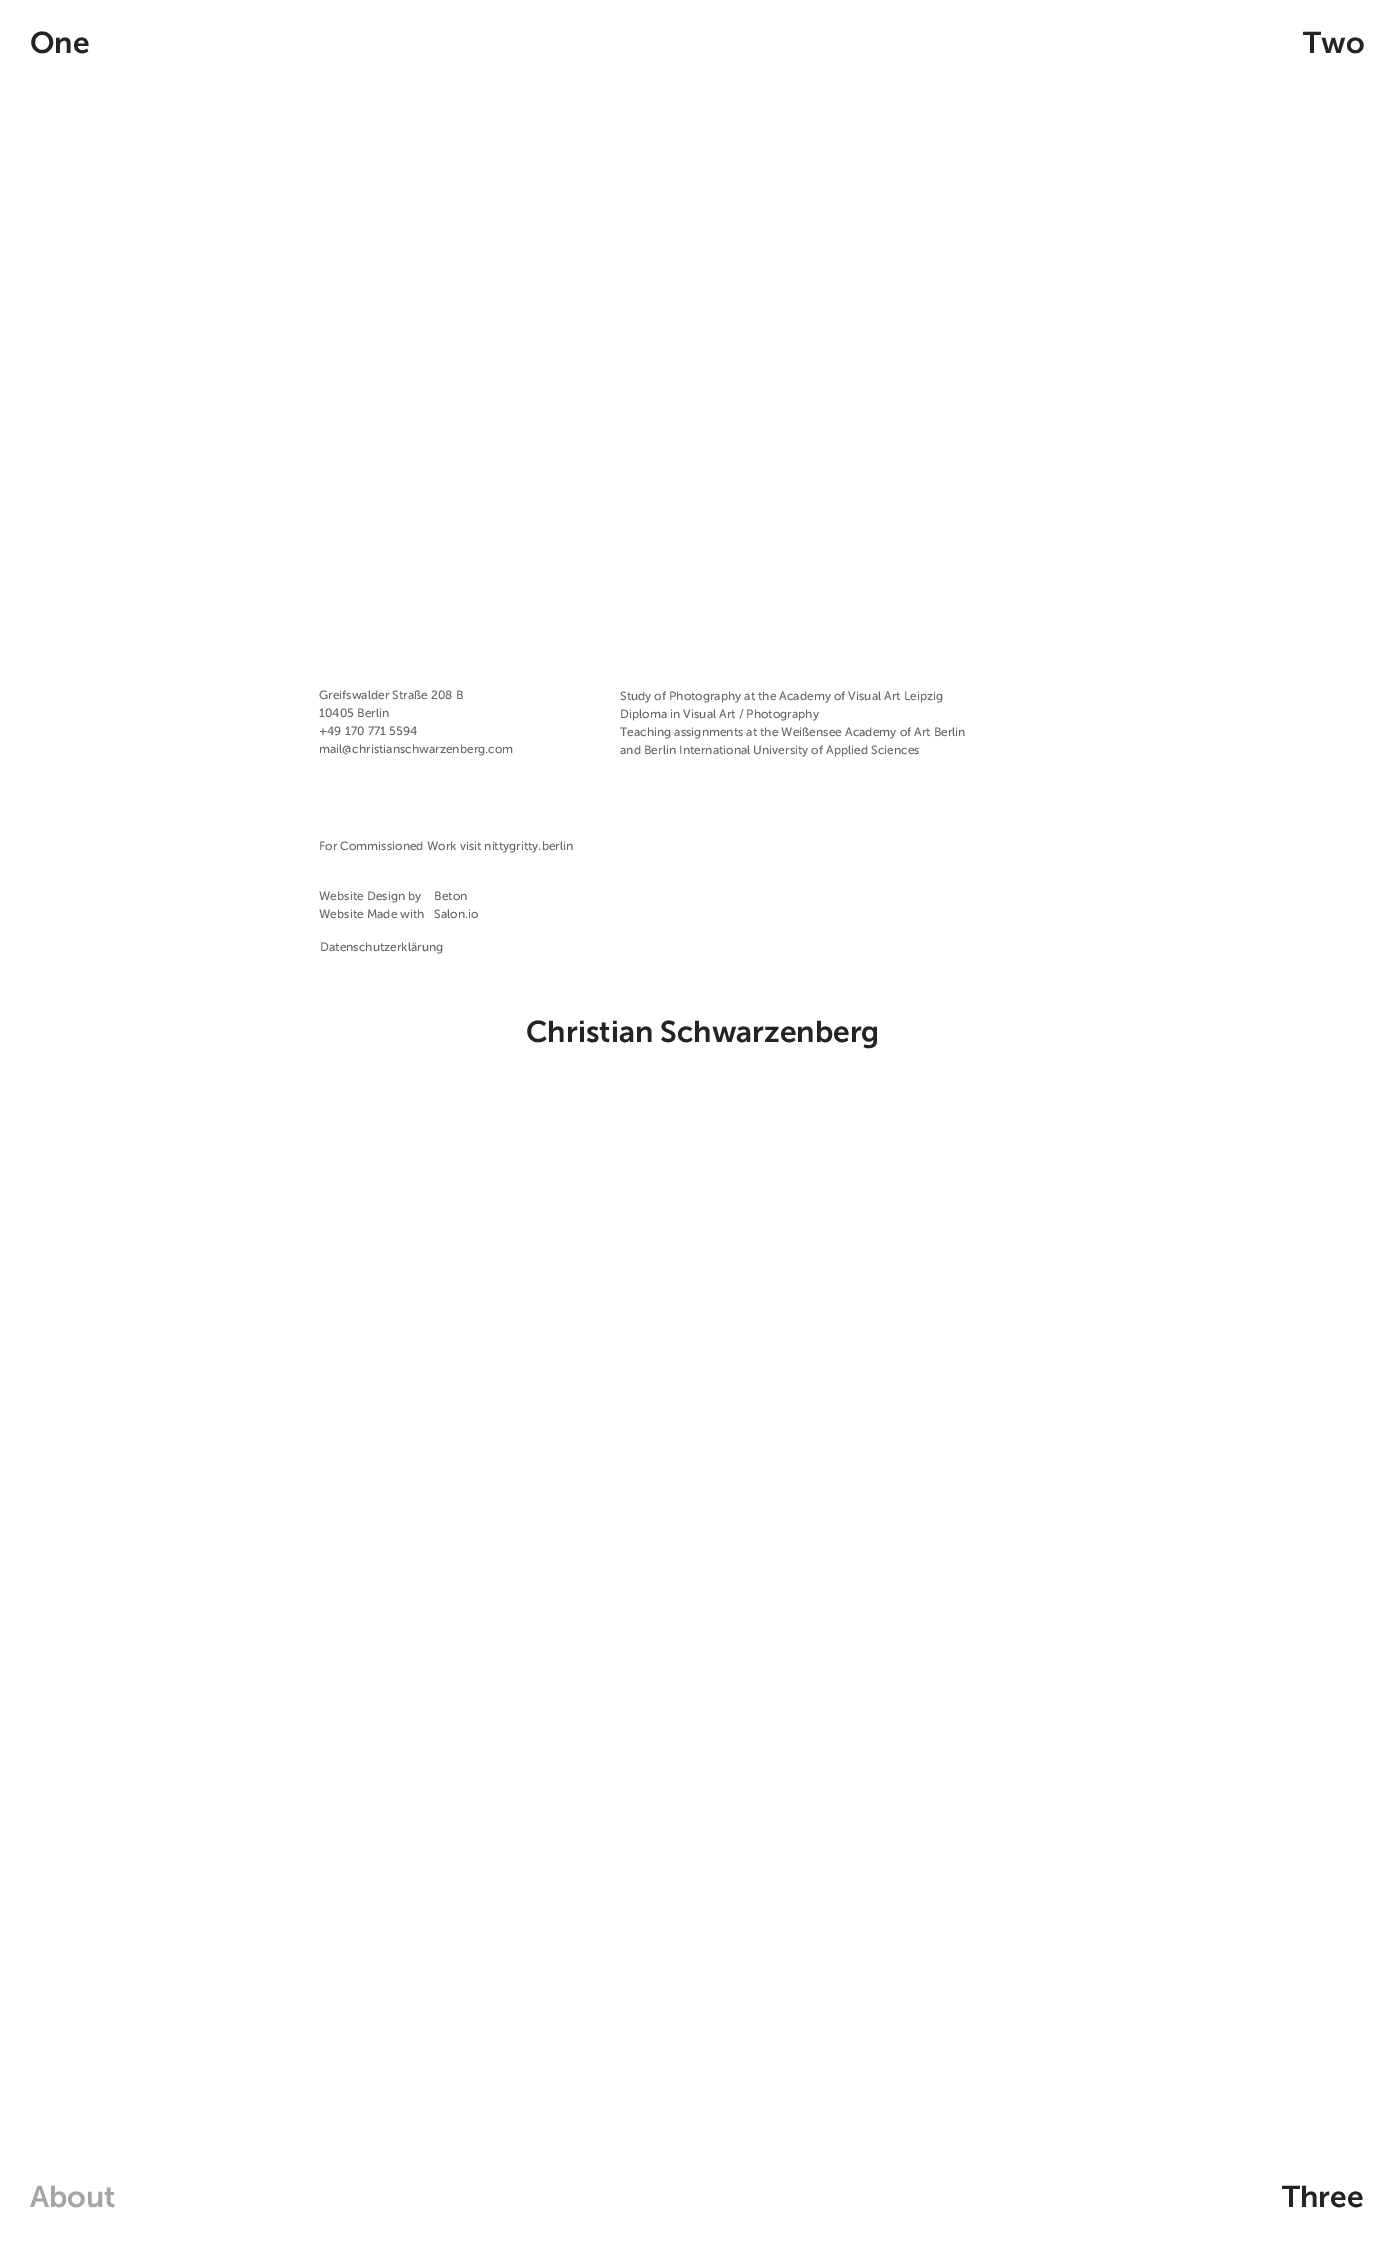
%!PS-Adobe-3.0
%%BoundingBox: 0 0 1394 2242
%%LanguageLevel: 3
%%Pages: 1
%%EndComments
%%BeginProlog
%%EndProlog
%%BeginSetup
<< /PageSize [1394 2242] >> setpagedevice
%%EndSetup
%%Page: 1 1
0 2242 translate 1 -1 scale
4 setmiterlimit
1 setgray
0 0 1394 2242 rectfill
/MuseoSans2-Regular [30 0 0 -30 0 0] selectfont
0.145 0.141 0.141 setrgbcolor
30 53 moveto (One) show
1303 53 moveto (Two) show
0.647 0.647 0.643 setrgbcolor
30 2207 moveto (About) show
0.145 0.141 0.141 setrgbcolor
1282 2207 moveto (Three) show
526 1042 moveto (Christian Schwarzenberg) show
/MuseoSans-Regular [12 0 0 -12 0 0] selectfont
0.4 setgray
319 699 moveto (Greifswalder Straße 208 B) show
319 717 moveto (10405 Berlin) show
319 735 moveto (+49 170 771 5594) show
319 753 moveto (mail@christianschwarzenberg.com) show
620 700 moveto (Study of Photography at the Academy of Visual Art Leipzig) show
620 718 moveto (Diploma in Visual Art / Photography) show
620 736 moveto (Teaching assignments at the Weißensee Academy of Art Berlin) show
620 754 moveto (and Berlin International University of Applied Sciences) show
319 850 moveto (For Commissioned Work visit nittygritty.berlin) show
319 900 moveto (Website Design by) show
434 900 moveto (Beton) show
319 918 moveto (Website Made with) show
434 918 moveto (Salon.io) show
320 951 moveto (Datenschutzerklärung) show
showpage
%%EOF
